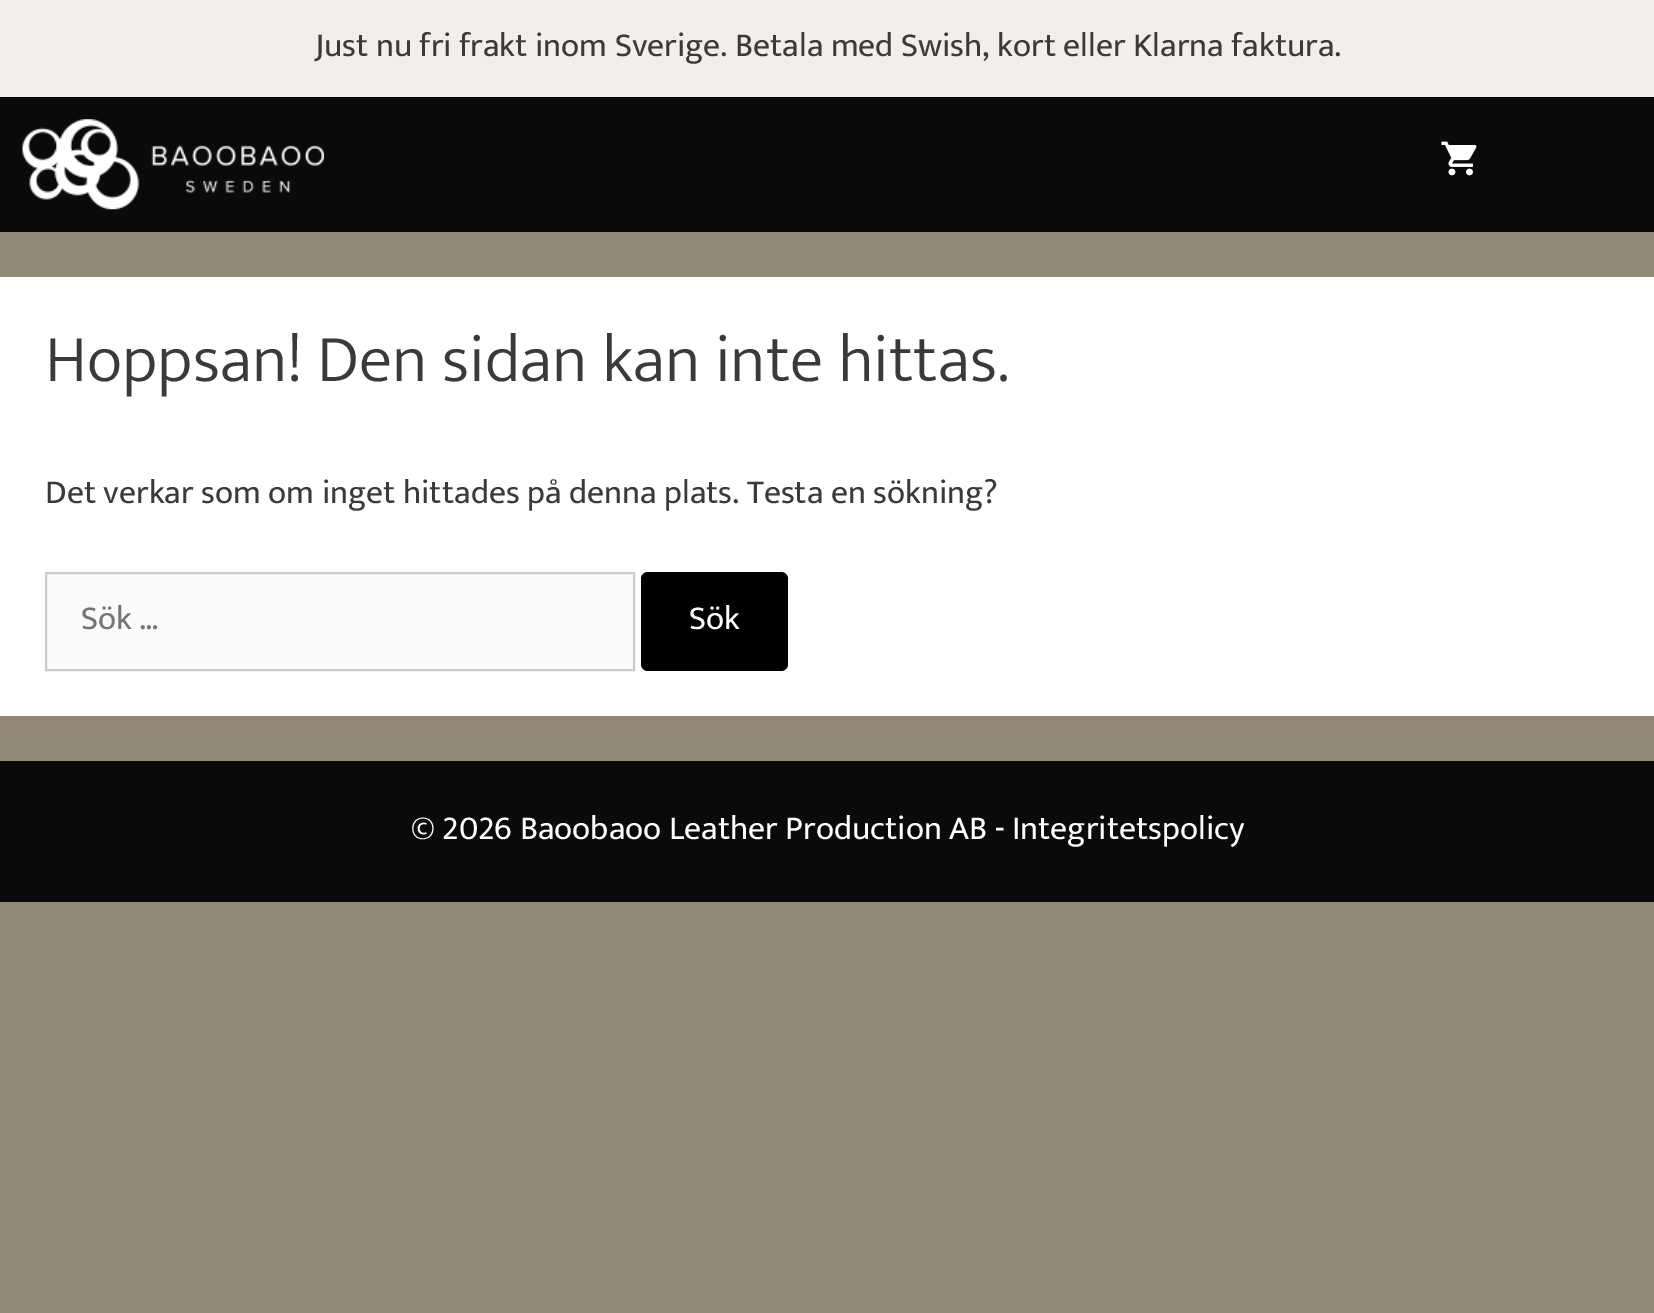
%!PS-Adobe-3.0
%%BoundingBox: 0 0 1654 1313
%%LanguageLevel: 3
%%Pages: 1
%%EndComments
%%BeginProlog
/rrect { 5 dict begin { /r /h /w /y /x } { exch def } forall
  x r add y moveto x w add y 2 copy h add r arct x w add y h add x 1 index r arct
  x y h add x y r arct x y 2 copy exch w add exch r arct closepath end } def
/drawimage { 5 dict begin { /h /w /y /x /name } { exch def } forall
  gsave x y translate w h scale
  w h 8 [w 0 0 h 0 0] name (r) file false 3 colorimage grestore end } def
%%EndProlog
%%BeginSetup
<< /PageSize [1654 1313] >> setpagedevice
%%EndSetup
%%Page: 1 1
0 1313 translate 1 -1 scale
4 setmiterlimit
0.576 0.533 0.463 setrgbcolor
0 0 1654 1313 rectfill
0.949 0.937 0.918 setrgbcolor
0 0 1654 97 rectfill
0.039 setgray
0 97 1654 135 rectfill
(images/1.raw) 22 119 302 91 drawimage
(images/2.raw) 1441 141 36 35 drawimage
1 setgray
0 277 1654 439 rectfill
0.98 setgray
newpath 46 573 moveto 634 573 lineto 634 670 lineto 46 670 lineto closepath gsave fill grestore
0.8 setgray
2 setlinewidth
stroke
0 setgray
641 572 147 99 7 rrect fill
0.039 setgray
0 761 1654 141 rectfill
/EkMukta-Regular [33.75 0 0 -33.75 0 0] selectfont
0.227 setgray
315 56 moveto (Just nu fri frakt inom Sverige. Betala med Swish, kort eller Klarna faktura.) show
/EkMukta-Light [67.5 0 0 -67.5 0 0] selectfont
45 381 moveto (Hoppsan! Den sidan kan inte hittas.) show
/EkMukta-Regular [33.75 0 0 -33.75 0 0] selectfont
45 503 moveto (Det verkar som om inget hittades på denna plats. Testa en sökning?) show
0.459 setgray
81 629 moveto (Sök …) show
1 setgray
689 629 moveto (Sök) show
411 839 moveto (© 2026 Baoobaoo Leather Production AB - Integritetspolicy) show
showpage
%%EOF
